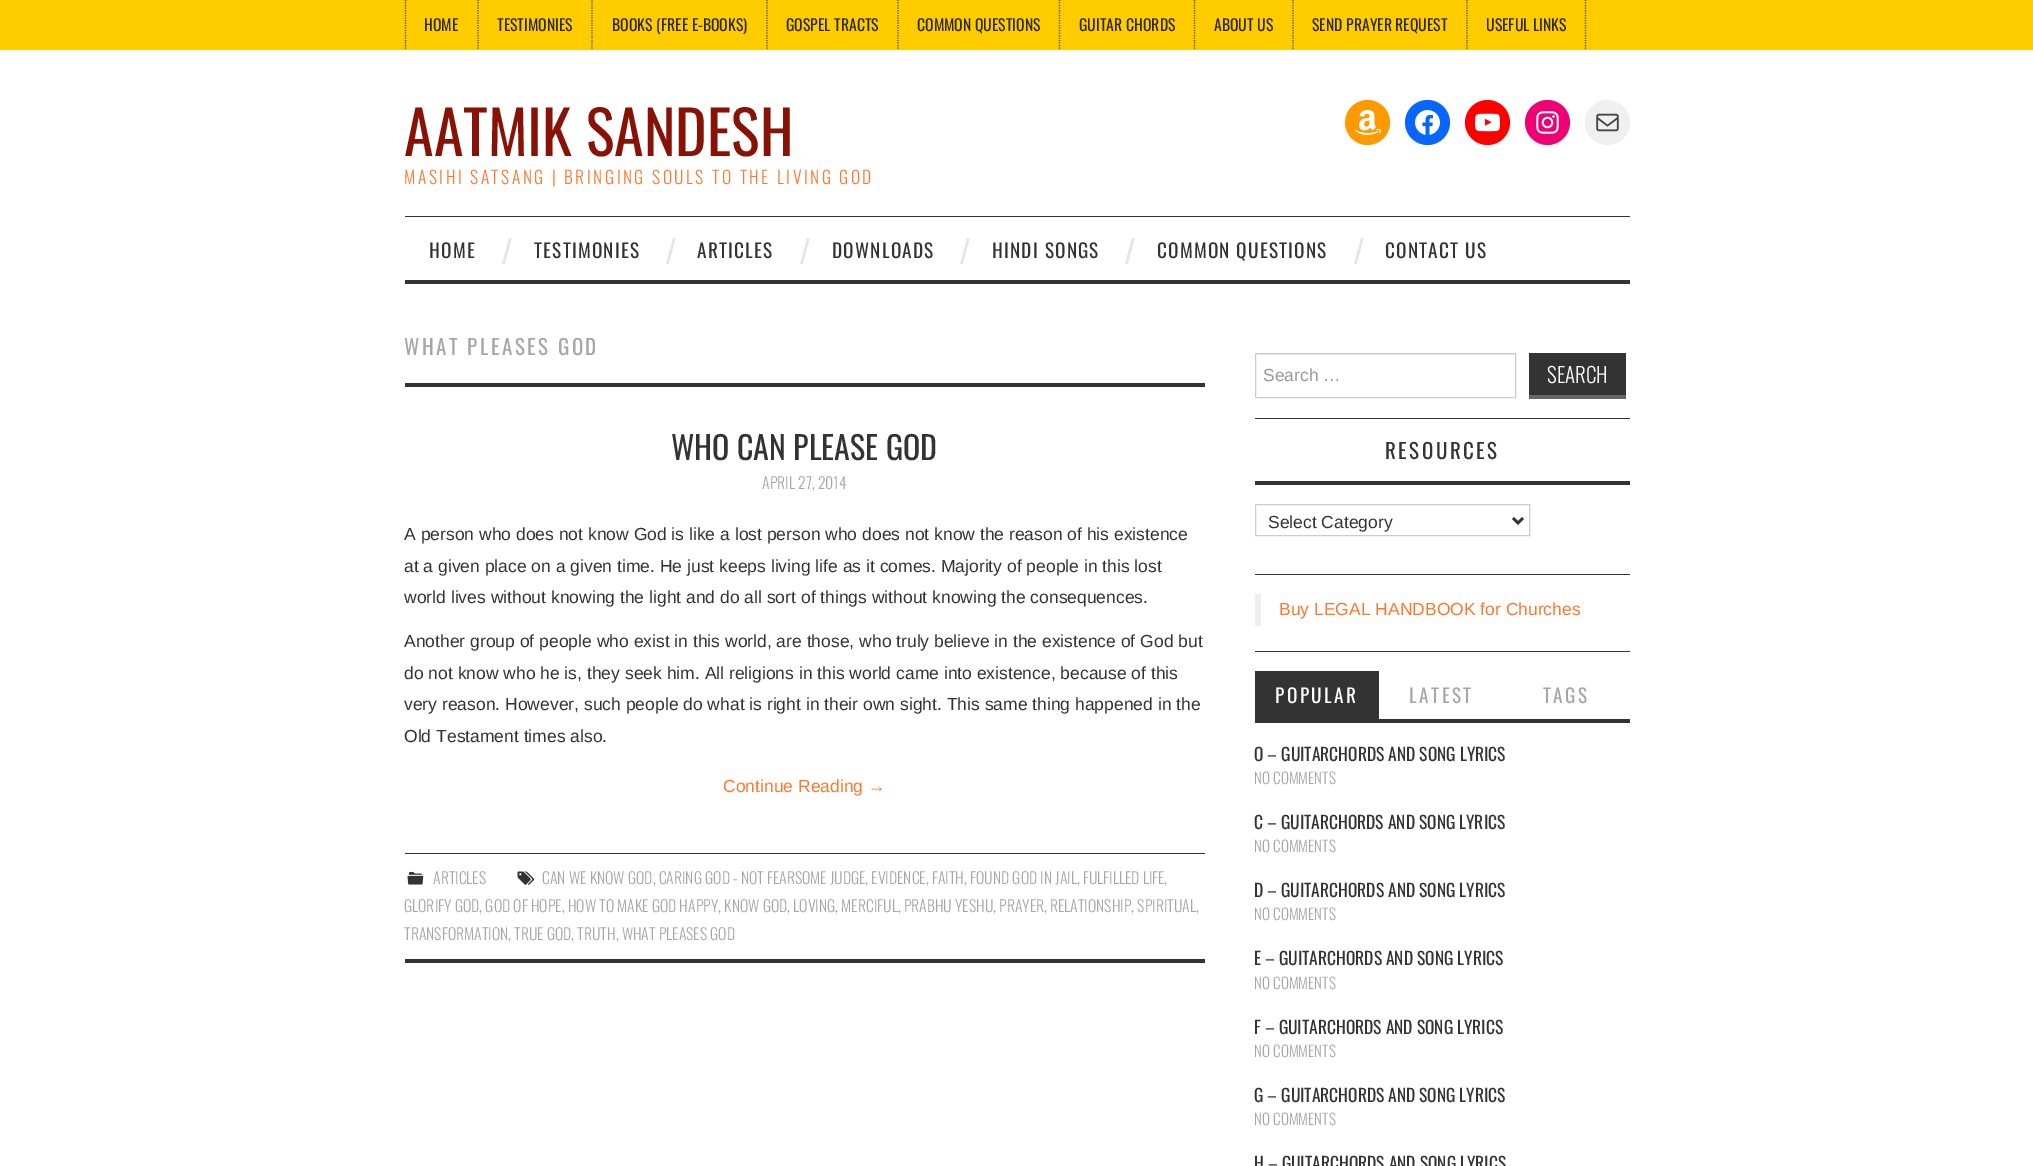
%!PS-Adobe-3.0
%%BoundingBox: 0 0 2033 1166
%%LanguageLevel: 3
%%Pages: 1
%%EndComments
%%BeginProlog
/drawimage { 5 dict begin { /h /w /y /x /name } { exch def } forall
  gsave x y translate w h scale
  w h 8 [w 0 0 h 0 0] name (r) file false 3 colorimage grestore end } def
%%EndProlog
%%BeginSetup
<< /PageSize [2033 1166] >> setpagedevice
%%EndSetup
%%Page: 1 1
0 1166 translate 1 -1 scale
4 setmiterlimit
1 setgray
0 0 2033 1166 rectfill
1 0.8 0 setrgbcolor
0 0 2033 50 rectfill
0.337 setgray
1.2 setlinewidth
[1.25 1.25] 0 setdash
newpath 405.5 0 moveto 405.5 50 lineto stroke
newpath 478 0 moveto 478 50 lineto stroke
newpath 592 0 moveto 592 50 lineto stroke
newpath 767 0 moveto 767 50 lineto stroke
newpath 898 0 moveto 898 50 lineto stroke
newpath 1059.5 0 moveto 1059.5 50 lineto stroke
newpath 1194.5 0 moveto 1194.5 50 lineto stroke
newpath 1293 0 moveto 1293 50 lineto stroke
newpath 1467 0 moveto 1467 50 lineto stroke
newpath 1585.5 0 moveto 1585.5 50 lineto stroke
1 0.6 0 setrgbcolor
newpath 1367.5 122.5 22.5 0 360 arc closepath fill
(images/1.raw) 1354 110 27 25 drawimage
0.031 0.4 1 setrgbcolor
newpath 1427.5 122.5 22.5 0 360 arc closepath fill
(images/2.raw) 1415 110 25 25 drawimage
1 0 0 setrgbcolor
newpath 1487.5 122.5 22.5 0 360 arc closepath fill
(images/3.raw) 1475 113 25 19 drawimage
0.941 0 0.459 setrgbcolor
newpath 1547.5 122.5 22.5 0 360 arc closepath fill
(images/4.raw) 1536 111 23 23 drawimage
0.941 setgray
newpath 1607.5 122.5 22.5 0 360 arc closepath fill
(images/5.raw) 1596 113 23 19 drawimage
0.2 setgray
405 216 1225 1 rectfill
405 280 1225 4 rectfill
405 383 800 4 rectfill
405 853 800 1 rectfill
405 959 800 4 rectfill
(images/6.raw) 517 871 18 14 drawimage
(images/7.raw) 407 871 17 14 drawimage
1255 418 375 1 rectfill
0.925 setgray
1256 354 259 1 rectfill
0.8 setgray
1 setlinewidth
[] 0 setdash
1255.5 353.5 260 44 rectstroke
0.2 setgray
1529 353 97 42 rectfill
0.4 setgray
1529 395 97 4 rectfill
0.2 setgray
1255 574 375 1 rectfill
1255 481 375 4 rectfill
0.8 setgray
1255.5 504.5 274 31 rectstroke
0.2 setgray
2.5 setlinewidth
newpath 1513 518 moveto 1518 523 lineto 1523 518 lineto stroke
1255 651 375 1 rectfill
0.933 setgray
1255 594 6 32 rectfill
0.2 setgray
1255 719 375 4 rectfill
1255 671 124 48 rectfill
/Oswald-Regular [15.75 0 0 -15.75 0 0] selectfont
0.165 0.153 0.125 setrgbcolor
424 31 moveto (HOME) show
497 31 moveto (TESTIMONIES) show
612 31 moveto (BOOKS \(FREE E-BOOKS\)) show
786 31 moveto (GOSPEL TRACTS) show
917 31 moveto (COMMON QUESTIONS) show
1079 31 moveto (GUITAR CHORDS) show
1214 31 moveto (ABOUT US) show
1312 31 moveto (SEND PRAYER REQUEST) show
1486 31 moveto (USEFUL LINKS) show
/Oswald-Regular [60 0 0 -60 0 0] selectfont
0.529 0.071 0.02 setrgbcolor
404 156 moveto (AATMIK SANDESH) show
/Oswald-Light [17.5 0 0 -17.5 0 0] selectfont
0.996 0.471 0.173 setrgbcolor
404 184 moveto 2.5 0 (MASIHI SATSANG | BRINGING SOULS TO THE LIVING GOD) ashow
/Oswald-Regular [19.25 0 0 -19.25 0 0] selectfont
0.2 setgray
429 258 moveto 1.25 0 (HOME) ashow
/Oswald-Regular [32 0 0 -32 0 0] selectfont
0.902 setgray
501 264 moveto (/) show
/Oswald-Regular [19.25 0 0 -19.25 0 0] selectfont
0.2 setgray
534 258 moveto 1.25 0 (TESTIMONIES) ashow
/Oswald-Regular [32 0 0 -32 0 0] selectfont
0.902 setgray
665 264 moveto (/) show
/Oswald-Regular [19.25 0 0 -19.25 0 0] selectfont
0.2 setgray
697 258 moveto 1.25 0 (ARTICLES) ashow
/Oswald-Regular [32 0 0 -32 0 0] selectfont
0.902 setgray
799 264 moveto (/) show
/Oswald-Regular [19.25 0 0 -19.25 0 0] selectfont
0.2 setgray
832 258 moveto 1.25 0 (DOWNLOADS) ashow
/Oswald-Regular [32 0 0 -32 0 0] selectfont
0.902 setgray
959 264 moveto (/) show
/Oswald-Regular [19.25 0 0 -19.25 0 0] selectfont
0.2 setgray
992 258 moveto 1.25 0 (HINDI SONGS) ashow
/Oswald-Regular [32 0 0 -32 0 0] selectfont
0.902 setgray
1124 264 moveto (/) show
/Oswald-Regular [19.25 0 0 -19.25 0 0] selectfont
0.2 setgray
1157 258 moveto 1.25 0 (COMMON QUESTIONS) ashow
/Oswald-Regular [32 0 0 -32 0 0] selectfont
0.902 setgray
1353 264 moveto (/) show
/Oswald-Regular [19.25 0 0 -19.25 0 0] selectfont
0.2 setgray
1385 258 moveto 1.25 0 (CONTACT US) ashow
/Oswald-Regular [21 0 0 -21 0 0] selectfont
0.651 setgray
404 355 moveto 2.5 0 (WHAT PLEASES GOD) ashow
/Oswald-Regular [32 0 0 -32 0 0] selectfont
0.2 setgray
671 460 moveto (WHO CAN PLEASE GOD) show
/Oswald-Light [15.75 0 0 -15.75 0 0] selectfont
0.651 setgray
762 489 moveto (APRIL 27, 2014) show
/LiberationSans-Regular [17.5 0 0 -17.5 0 0] selectfont
0.2 setgray
404 540 moveto (A person who does not know God is like a lost person who does not know the reason of his existence) show
404 572 moveto (at a given place on a given time. He just keeps living life as it comes. Majority of people in this lost) show
404 603 moveto (world lives without knowing the light and do all sort of things without knowing the consequences.) show
404 647 moveto (Another group of people who exist in this world, are those, who truly believe in the existence of God but) show
404 679 moveto (do not know who he is, they seek him. All religions in this world came into existence, because of this) show
404 710 moveto (very reason. However, such people do what is right in their own sight. This same thing happened in the) show
404 742 moveto (Old Testament times also.) show
0.996 0.471 0.173 setrgbcolor
723 792 moveto (Continue Reading →) show
/Oswald-Light [15.75 0 0 -15.75 0 0] selectfont
0.651 setgray
542 884 moveto (CAN WE KNOW GOD, CARING GOD - NOT FEARSOME JUDGE, EVIDENCE, FAITH, FOUND GOD IN JAIL, FULFILLED LIFE,) show
404 912 moveto (GLORIFY GOD, GOD OF HOPE, HOW TO MAKE GOD HAPPY, KNOW GOD, LOVING, MERCIFUL, PRABHU YESHU, PRAYER, RELATIONSHIP, SPIRITUAL,) show
404 940 moveto (TRANSFORMATION, TRUE GOD, TRUTH, WHAT PLEASES GOD) show
433 884 moveto (ARTICLES) show
/LiberationSans-Regular [17.5 0 0 -17.5 0 0] selectfont
0.6 setgray
1263 381 moveto (Search …) show
/Oswald-Light [21 0 0 -21 0 0] selectfont
1 setgray
1547 383 moveto (SEARCH) show
/Oswald-Regular [21 0 0 -21 0 0] selectfont
0.2 setgray
1385 459 moveto 2.5 0 (RESOURCES) ashow
/LiberationSans-Regular [17.5 0 0 -17.5 0 0] selectfont
1268 528 moveto (Select Category) show
0.996 0.471 0.173 setrgbcolor
1279 615 moveto (Buy LEGAL HANDBOOK for Churches) show
/Oswald-Regular [19.25 0 0 -19.25 0 0] selectfont
1 setgray
1275 703 moveto 2.5 0 (POPULAR) ashow
0.651 setgray
1409 703 moveto 2.5 0 (LATEST) ashow
1543 703 moveto 2.5 0 (TAGS) ashow
/Oswald-Regular [17.5 0 0 -17.5 0 0] selectfont
0.2 setgray
1254 761 moveto (O – GUITARCHORDS AND SONG LYRICS) show
/Oswald-Light [15.25 0 0 -15.25 0 0] selectfont
0.651 setgray
1254 784 moveto (NO COMMENTS) show
/Oswald-Regular [17.5 0 0 -17.5 0 0] selectfont
0.2 setgray
1254 829 moveto (C – GUITARCHORDS AND SONG LYRICS) show
/Oswald-Light [15.25 0 0 -15.25 0 0] selectfont
0.651 setgray
1254 852 moveto (NO COMMENTS) show
/Oswald-Regular [17.5 0 0 -17.5 0 0] selectfont
0.2 setgray
1254 897 moveto (D – GUITARCHORDS AND SONG LYRICS) show
/Oswald-Light [15.25 0 0 -15.25 0 0] selectfont
0.651 setgray
1254 920 moveto (NO COMMENTS) show
/Oswald-Regular [17.5 0 0 -17.5 0 0] selectfont
0.2 setgray
1254 965 moveto (E – GUITARCHORDS AND SONG LYRICS) show
/Oswald-Light [15.25 0 0 -15.25 0 0] selectfont
0.651 setgray
1254 989 moveto (NO COMMENTS) show
/Oswald-Regular [17.5 0 0 -17.5 0 0] selectfont
0.2 setgray
1254 1034 moveto (F – GUITARCHORDS AND SONG LYRICS) show
/Oswald-Light [15.25 0 0 -15.25 0 0] selectfont
0.651 setgray
1254 1057 moveto (NO COMMENTS) show
/Oswald-Regular [17.5 0 0 -17.5 0 0] selectfont
0.2 setgray
1254 1102 moveto (G – GUITARCHORDS AND SONG LYRICS) show
/Oswald-Light [15.25 0 0 -15.25 0 0] selectfont
0.651 setgray
1254 1125 moveto (NO COMMENTS) show
/Oswald-Regular [17.5 0 0 -17.5 0 0] selectfont
0.2 setgray
1254 1170 moveto (H – GUITARCHORDS AND SONG LYRICS) show
showpage
%%EOF
